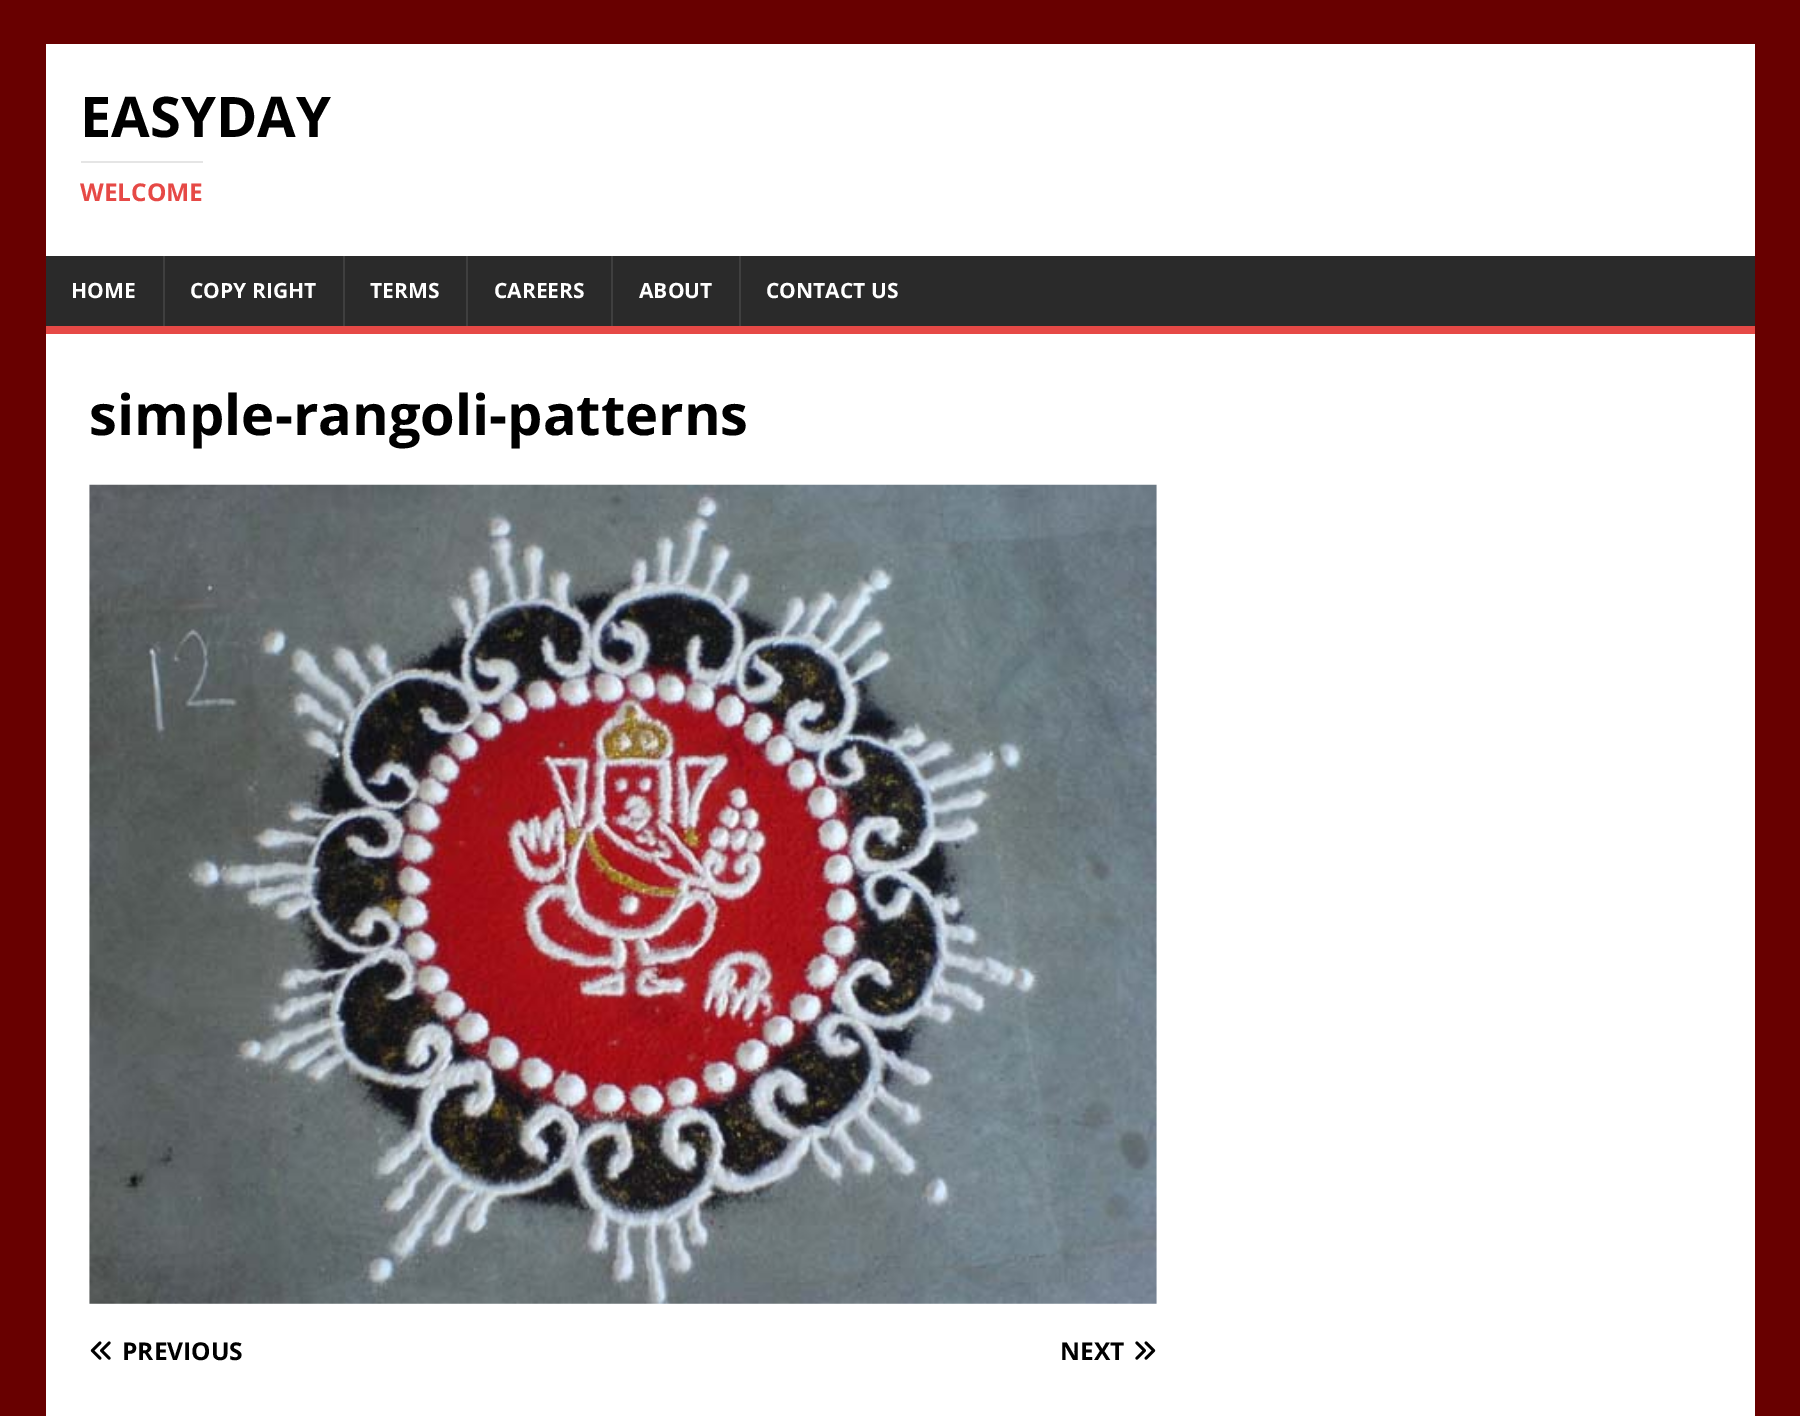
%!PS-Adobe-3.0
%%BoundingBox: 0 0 1800 1416
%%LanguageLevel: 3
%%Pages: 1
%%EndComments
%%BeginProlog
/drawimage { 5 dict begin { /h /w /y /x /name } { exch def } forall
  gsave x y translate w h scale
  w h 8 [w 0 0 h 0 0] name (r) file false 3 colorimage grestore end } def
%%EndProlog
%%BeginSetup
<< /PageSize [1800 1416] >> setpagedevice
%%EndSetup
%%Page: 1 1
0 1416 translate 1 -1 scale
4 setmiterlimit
0.408 0 0 setrgbcolor
0 0 1800 1416 rectfill
1 setgray
46 44 1709 212 rectfill
0.898 setgray
81 161 122 2 rectfill
0.165 setgray
46 256 1709 70 rectfill
0.902 0.286 0.275 setrgbcolor
46 326 1709 8 rectfill
0.247 setgray
163 256 2 70 rectfill
343 256 2 70 rectfill
466 256 2 70 rectfill
611 256 2 70 rectfill
739 256 2 70 rectfill
1 setgray
46 334 1709 1082 rectfill
(images/1.raw) 89 484 1068 820 drawimage
(images/2.raw) 90 1341 21 19 drawimage
(images/3.raw) 1135 1341 21 19 drawimage
/OpenSans-Bold [56 0 0 -56 0 0] selectfont
0 setgray
80 137 moveto (EASYDAY) show
/OpenSans-Bold [24.5 0 0 -24.5 0 0] selectfont
0.902 0.286 0.275 setrgbcolor
80 201 moveto (WELCOME) show
/OpenSans-Bold [21 0 0 -21 0 0] selectfont
1 setgray
71 298 moveto (HOME) show
190 298 moveto (COPY RIGHT) show
370 298 moveto (TERMS) show
494 298 moveto (CAREERS) show
639 298 moveto (ABOUT) show
766 298 moveto (CONTACT US) show
/OpenSans-Bold [56 0 0 -56 0 0] selectfont
0 setgray
89 435 moveto (simple-rangoli-patterns) show
/OpenSans-Bold [24.5 0 0 -24.5 0 0] selectfont
122 1360 moveto (PREVIOUS) show
1060 1360 moveto (NEXT) show
showpage
%%EOF
